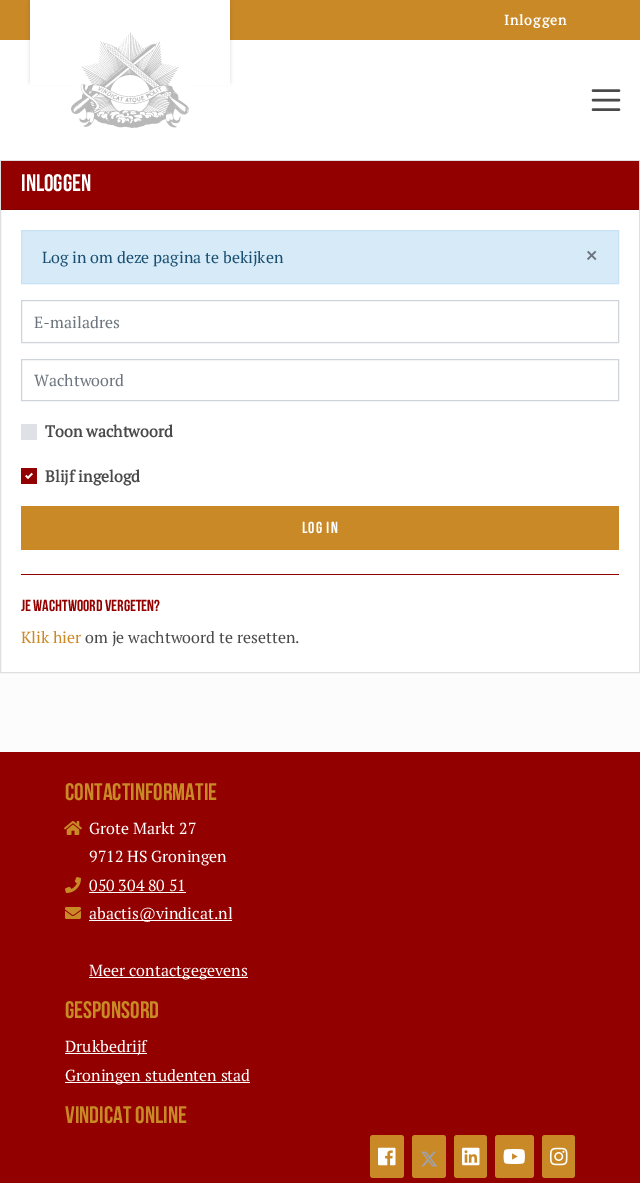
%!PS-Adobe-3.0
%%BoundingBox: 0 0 640 1183
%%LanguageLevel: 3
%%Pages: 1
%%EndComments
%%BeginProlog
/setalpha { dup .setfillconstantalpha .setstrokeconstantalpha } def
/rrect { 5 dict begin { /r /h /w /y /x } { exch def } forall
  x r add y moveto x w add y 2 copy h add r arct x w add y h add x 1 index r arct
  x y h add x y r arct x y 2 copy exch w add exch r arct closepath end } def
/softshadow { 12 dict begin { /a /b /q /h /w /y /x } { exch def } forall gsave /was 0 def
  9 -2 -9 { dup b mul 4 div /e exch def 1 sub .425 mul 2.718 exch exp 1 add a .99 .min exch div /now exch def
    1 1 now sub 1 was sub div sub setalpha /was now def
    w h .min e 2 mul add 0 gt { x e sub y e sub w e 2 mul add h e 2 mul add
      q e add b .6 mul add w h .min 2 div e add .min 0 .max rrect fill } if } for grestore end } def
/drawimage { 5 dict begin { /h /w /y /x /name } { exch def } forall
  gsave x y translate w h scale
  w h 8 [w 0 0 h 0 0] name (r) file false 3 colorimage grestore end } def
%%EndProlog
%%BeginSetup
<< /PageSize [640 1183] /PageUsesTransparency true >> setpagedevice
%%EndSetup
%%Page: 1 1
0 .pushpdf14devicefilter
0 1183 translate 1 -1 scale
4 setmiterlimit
0.988 setgray
0 0 640 1183 rectfill
1 setgray
0 40 640 120 rectfill
0.792 0.537 0.153 setrgbcolor
0 0 640 40 rectfill
0 setgray
30 2 200 80 0 2 0.15 softshadow
1 setgray
30 0 200 85 rectfill
(images/1.raw) 71 32 118 96 drawimage
0.29 setgray
2.4 setlinewidth
1 setlinecap
newpath 593 90.5 moveto 619 90.5 lineto 593 100 moveto 619 100 lineto 593 109.5 moveto 619 109.5 lineto stroke
1 setgray
1 210 638 462 rectfill
0.875 setgray
1 setlinewidth
0 setlinecap
0.5 160.5 639 512 rectstroke
0.573 0.004 0 setrgbcolor
1 161 638 48 rectfill
0.502 0.004 0 setrgbcolor
1 209 638 1 rectfill
0.839 0.918 0.973 setrgbcolor
newpath 21.5 230.5 moveto 618.5 230.5 lineto 618.5 283.5 lineto 21.5 283.5 lineto closepath gsave fill grestore
0.776 0.886 0.961 setrgbcolor
stroke
0.808 0.831 0.855 setrgbcolor
21.5 300.5 597 42 rectstroke
21.5 359.5 597 41 rectstroke
0.871 0.886 0.902 setrgbcolor
21 424 16 16 rectfill
0.573 0.004 0 setrgbcolor
21 468 16 16 rectfill
(images/2.raw) 25 472 8 8 drawimage
0.792 0.537 0.153 setrgbcolor
21 506 598 44 rectfill
0.573 0.004 0 setrgbcolor
21 574 598 1 rectfill
0 752 640 431 rectfill
(images/3.raw) 64 821 18 14 drawimage
(images/4.raw) 65 877 16 16 drawimage
1 setgray
89 892 97 1 rectfill
(images/5.raw) 65 907 16 12 drawimage
89 920 143 1 rectfill
89 977 159 1 rectfill
65 1053 82 1 rectfill
65 1082 185 1 rectfill
0.792 0.537 0.153 setrgbcolor
370 1135 34 43 3 rrect fill
(images/6.raw) 378 1147 18 19 drawimage
412 1135 34 43 3 rrect fill
(images/7.raw) 421 1151 16 16 drawimage
454 1135 33 43 3 rrect fill
(images/8.raw) 462 1147 18 19 drawimage
495 1135 39 43 3 rrect fill
(images/9.raw) 503 1149 22 15 drawimage
542 1135 33 43 3 rrect fill
(images/10.raw) 550 1147 18 19 drawimage
/PTSerif-Bold [14 0 0 -14 0 0] selectfont
1 setgray
504 25 moveto 1 0 (Inloggen) ashow
/BebasNeue-Bold [24 0 0 -24 0 0] selectfont
21 191 moveto (INLOGGEN) show
/PTSerif-Regular [16 0 0 -16 0 0] selectfont
0.106 0.31 0.447 setrgbcolor
42 263 moveto (Log in om deze pagina te bekijken) show
/PTSerif-Bold [24 0 0 -24 0 0] selectfont
0.424 0.459 0.49 setrgbcolor
585 264 moveto (×) show
/PTSerif-Regular [16 0 0 -16 0 0] selectfont
34 328 moveto (E-mailadres) show
34 386 moveto (Wachtwoord) show
/PTSerif-Bold [16 0 0 -16 0 0] selectfont
0.29 setgray
45 437 moveto (Toon wachtwoord) show
45 482 moveto (Blijf ingelogd) show
/BebasNeue-Bold [16 0 0 -16 0 0] selectfont
1 setgray
302 533 moveto 1 0 (Log in) ashow
0.573 0.004 0 setrgbcolor
21 611 moveto (Je wachtwoord vergeten?) show
/PTSerif-Regular [16 0 0 -16 0 0] selectfont
0.792 0.537 0.153 setrgbcolor
21 643 moveto (Klik hier) show
0.29 setgray
85 643 moveto (om je wachtwoord te resetten.) show
/BebasNeue-Bold [24 0 0 -24 0 0] selectfont
0.792 0.537 0.153 setrgbcolor
65 800 moveto (CONTACTINFORMATIE) show
/PTSerif-Regular [16 0 0 -16 0 0] selectfont
1 setgray
89 834 moveto (Grote Markt 27) show
89 862 moveto (9712 HS Groningen) show
89 891 moveto (050 304 80 51) show
89 919 moveto (abactis@vindicat.nl) show
89 976 moveto (Meer contactgegevens) show
/BebasNeue-Bold [24 0 0 -24 0 0] selectfont
0.792 0.537 0.153 setrgbcolor
65 1018 moveto (GESPONSORD) show
/PTSerif-Regular [16 0 0 -16 0 0] selectfont
1 setgray
65 1052 moveto (Drukbedrijf) show
65 1081 moveto (Groningen studenten stad) show
/BebasNeue-Bold [24 0 0 -24 0 0] selectfont
0.792 0.537 0.153 setrgbcolor
65 1123 moveto (VINDICAT ONLINE) show
.poppdf14devicefilter showpage
%%EOF
